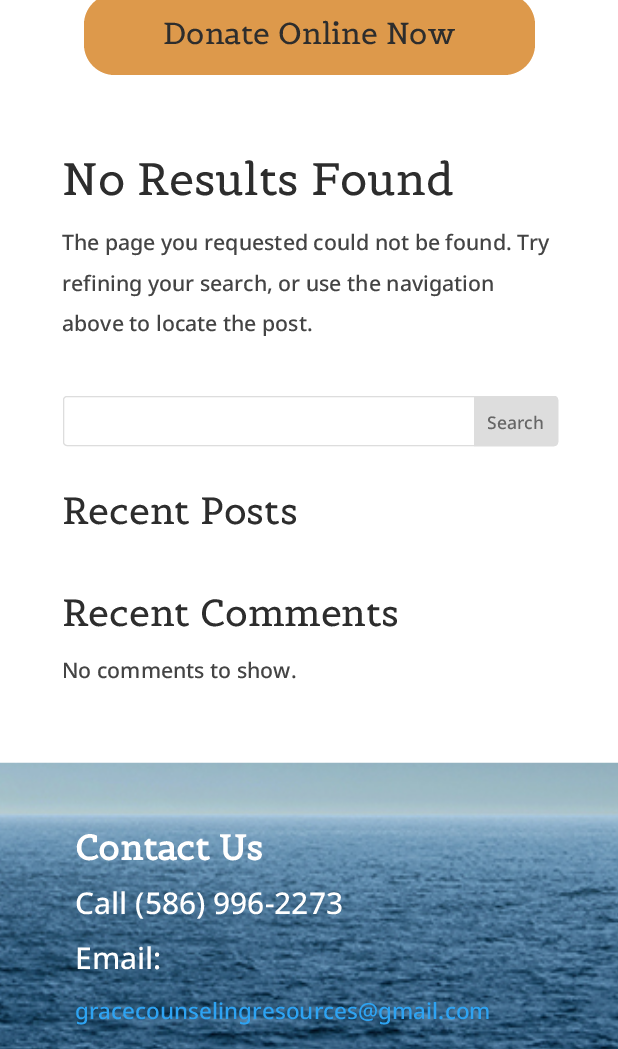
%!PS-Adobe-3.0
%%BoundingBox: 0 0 618 1049
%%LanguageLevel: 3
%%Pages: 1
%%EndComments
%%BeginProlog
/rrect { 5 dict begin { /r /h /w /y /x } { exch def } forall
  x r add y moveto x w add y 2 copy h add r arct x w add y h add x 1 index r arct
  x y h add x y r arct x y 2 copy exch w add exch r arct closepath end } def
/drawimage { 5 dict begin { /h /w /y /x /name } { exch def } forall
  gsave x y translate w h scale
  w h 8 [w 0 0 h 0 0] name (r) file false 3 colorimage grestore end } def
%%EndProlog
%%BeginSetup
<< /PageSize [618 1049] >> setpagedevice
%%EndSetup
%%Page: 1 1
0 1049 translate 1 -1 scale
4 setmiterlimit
1 setgray
0 0 618 1049 rectfill
0.867 0.6 0.294 setrgbcolor
84 -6 451 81 31 rrect fill
0.867 setgray
63.5 396.5 494 49 3.5 rrect stroke
newpath 474.5 396.5 moveto 554 396.5 lineto 556 396.5 557.5 398 557.5 400 curveto 557.5 442 lineto 557.5 444 556 445.5 554 445.5 curveto 474.5 445.5 lineto closepath gsave fill grestore
stroke
(images/1.raw) 0 762 618 287 drawimage
/Belgrano-Regular [30 0 0 -30 0 0] selectfont
0.176 setgray
163 44 moveto (Donate Online Now) show
/Belgrano-Regular [45 0 0 -45 0 0] selectfont
62 195 moveto (No Results Found) show
/NotoSans-Medium [21.25 0 0 -21.25 0 0] selectfont
0.267 setgray
62 250 moveto (The page you requested could not be found. Try) show
62 291 moveto (refining your search, or use the navigation) show
62 331 moveto (above to locate the post.) show
/NotoSans-Medium [17.5 0 0 -17.5 0 0] selectfont
0.4 setgray
487 429 moveto (Search) show
/Belgrano-Regular [37.5 0 0 -37.5 0 0] selectfont
0.176 setgray
62 524 moveto (Recent Posts) show
62 626 moveto (Recent Comments) show
/NotoSans-Medium [21.25 0 0 -21.25 0 0] selectfont
0.267 setgray
62 678 moveto (No comments to show.) show
/Belgrano-Bold [35 0 0 -35 0 0] selectfont
1 setgray
75 860 moveto (Contact Us) show
/NotoSans-Medium [30 0 0 -30 0 0] selectfont
75 914 moveto (Call \(586\) 996-2273) show
75 969 moveto (Email:) show
/NotoSans-Medium [22.5 0 0 -22.5 0 0] selectfont
0.18 0.639 0.949 setrgbcolor
75 1019 moveto (gracecounselingresources@gmail.com) show
showpage
%%EOF
